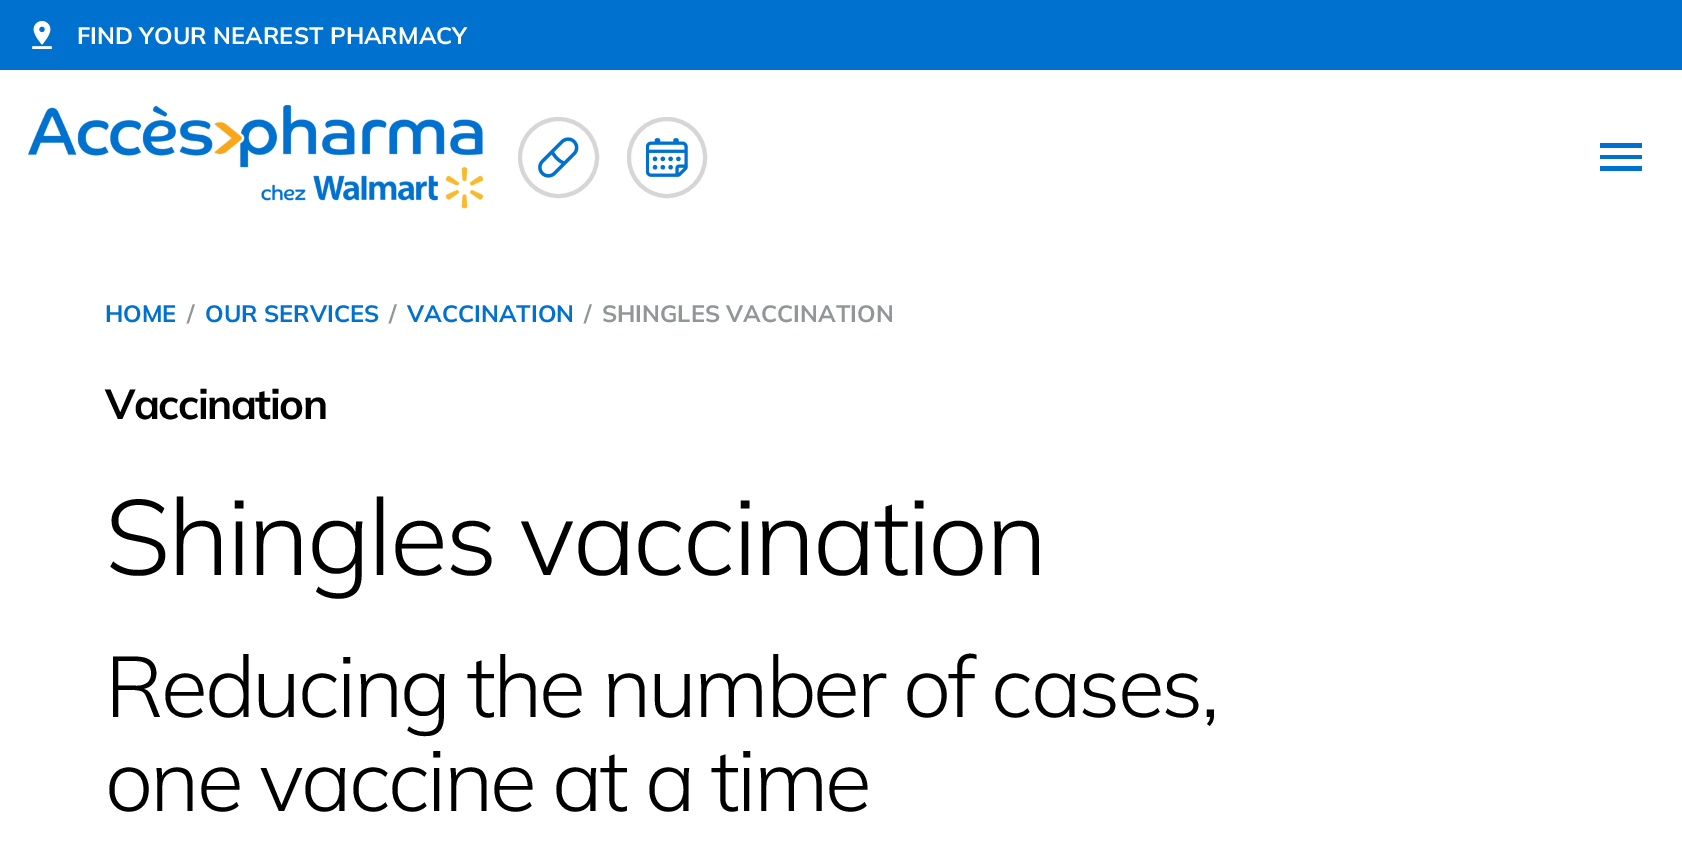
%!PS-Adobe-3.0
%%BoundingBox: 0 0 1682 861
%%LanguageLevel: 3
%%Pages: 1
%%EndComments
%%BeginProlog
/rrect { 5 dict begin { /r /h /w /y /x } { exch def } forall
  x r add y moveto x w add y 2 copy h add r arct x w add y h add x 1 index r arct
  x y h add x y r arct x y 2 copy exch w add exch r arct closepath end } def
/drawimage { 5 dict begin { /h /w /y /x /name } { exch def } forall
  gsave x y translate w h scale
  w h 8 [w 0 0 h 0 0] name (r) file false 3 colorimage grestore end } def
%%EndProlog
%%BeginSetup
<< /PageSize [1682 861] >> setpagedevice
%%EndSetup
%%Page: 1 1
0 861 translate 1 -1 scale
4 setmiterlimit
1 setgray
0 0 1682 861 rectfill
0 0.443 0.808 setrgbcolor
0 0 1682 70 rectfill
(images/1.raw) 32 21 20 28 drawimage
(images/2.raw) 28 105 455 104 drawimage
0.843 0.835 0.835 setrgbcolor
4 setlinewidth
newpath 558.5 157.5 38.5 0 360 arc closepath stroke
(images/3.raw) 538 137 41 41 drawimage
629 119 76 77 38 rrect stroke
(images/4.raw) 646 138 42 39 drawimage
0 0.443 0.808 setrgbcolor
newpath 1600 143 moveto 1642 143 lineto 1642 148 lineto 1600 148 lineto closepath 1600 155 moveto 1642 155 lineto 1642 159 lineto 1600 159 lineto closepath 1600 166 moveto 1642 166 lineto 1642 171 lineto 1600 171 lineto closepath fill
/Mulish-Bold [23.6 0 0 -23.6 0 0] selectfont
1 setgray
77 44 moveto (FIND YOUR NEAREST PHARMACY) show
0 0.443 0.808 setrgbcolor
105 322 moveto (HOME) show
0.569 0.588 0.6 setrgbcolor
187 322 moveto (/) show
0 0.443 0.808 setrgbcolor
205 322 moveto (OUR SERVICES) show
0.569 0.588 0.6 setrgbcolor
389 322 moveto (/) show
0 0.443 0.808 setrgbcolor
407 322 moveto (VACCINATION) show
0.569 0.588 0.6 setrgbcolor
584 322 moveto (/) show
602 322 moveto (SHINGLES VACCINATION) show
/Mulish-Bold [42 0 0 -42 0 0] selectfont
0 setgray
105 419 moveto -1.5 0 (Vaccination) ashow
/Mulish-Light [106.75 0 0 -106.75 0 0] selectfont
105 575 moveto -2.7 0 (Shingles vaccination) ashow
/Mulish-Light [85.75 0 0 -85.75 0 0] selectfont
105 717 moveto -3 0 (Reducing the number of cases,) ashow
105 811 moveto -3 0 (one vaccine at a time) ashow
showpage
%%EOF
